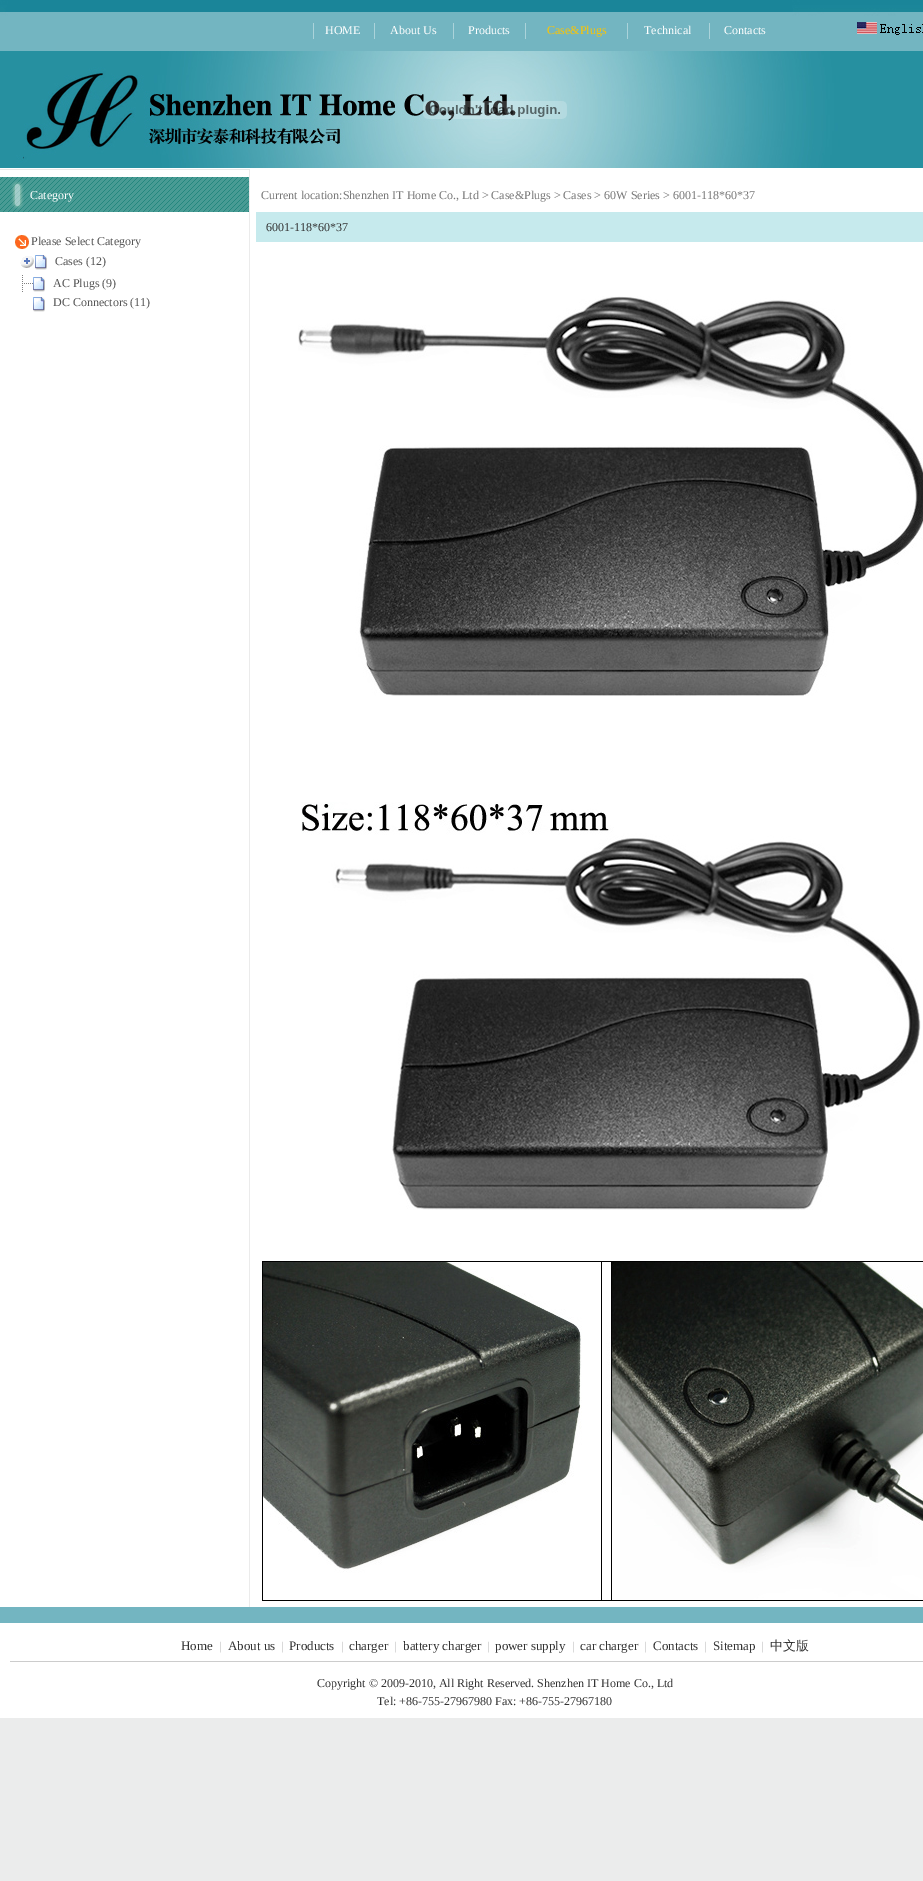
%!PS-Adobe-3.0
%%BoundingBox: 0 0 923 1881
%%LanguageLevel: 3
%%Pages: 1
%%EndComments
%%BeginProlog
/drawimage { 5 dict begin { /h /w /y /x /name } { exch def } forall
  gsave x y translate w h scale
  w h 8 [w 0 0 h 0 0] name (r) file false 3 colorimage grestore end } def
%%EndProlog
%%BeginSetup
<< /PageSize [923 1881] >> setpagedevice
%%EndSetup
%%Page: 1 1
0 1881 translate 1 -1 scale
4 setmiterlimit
0.922 0.925 0.925 setrgbcolor
0 0 923 1881 rectfill
(images/1.raw) 0 0 923 51 drawimage
0.671 0.827 0.855 setrgbcolor
313 23 1 16 rectfill
374 23 1 16 rectfill
453 23 1 16 rectfill
525 23 1 16 rectfill
627 23 1 16 rectfill
709 23 1 16 rectfill
(images/2.raw) 857 22 66 13 drawimage
(images/3.raw) 0 51 923 117 drawimage
(images/4.raw) 423 101 144 18 drawimage
1 setgray
0 168 923 1439 rectfill
0.922 setgray
249 212 1 1395 rectfill
(images/5.raw) 0 168 250 44 drawimage
(images/6.raw) 15 235 14 14 drawimage
(images/7.raw) 20 256 14 12 drawimage
(images/8.raw) 35 255 12 15 drawimage
(images/9.raw) 22 275 11 17 drawimage
(images/10.raw) 33 277 12 15 drawimage
(images/10.raw) 33 297 12 15 drawimage
0.776 0.918 0.929 setrgbcolor
256 212 667 30 rectfill
(images/11.raw) 298 296 625 400 drawimage
(images/12.raw) 301 802 620 408 drawimage
(images/13.raw) 262 1261 661 340 drawimage
0.451 0.71 0.757 setrgbcolor
0 1607 923 16 rectfill
1 setgray
0 1623 923 95 rectfill
0.8 setgray
10 1661 913 1 rectfill
/LiberationSerif-Regular [12 0 0 -12 0 0] selectfont
1 setgray
325 34 moveto (HOME) show
390 34 moveto (About Us) show
468 34 moveto (Products) show
1 0.776 0 setrgbcolor
547 34 moveto (Case&Plugs) show
1 setgray
644 34 moveto (Technical) show
724 34 moveto (Contacts) show
30 199 moveto (Category) show
0.333 setgray
31 245 moveto (Please Select Category) show
55 265 moveto (Cases \(12\)) show
53 287 moveto (AC Plugs \(9\)) show
53 306 moveto (DC Connectors \(11\)) show
0.467 setgray
261 199 moveto (Current location:Shenzhen IT Home Co., Ltd > Case&Plugs > Cases > 60W Series > 6001-118*60*37) show
0.2 setgray
266 231 moveto (6001-118*60*37) show
/LiberationSerif-Regular [13 0 0 -13 0 0] selectfont
181 1650 moveto (Home) show
/LiberationSerif-Regular [12 0 0 -12 0 0] selectfont
0.733 setgray
219 1650 moveto (|) show
/LiberationSerif-Regular [13 0 0 -13 0 0] selectfont
0.2 setgray
228 1650 moveto (About us) show
/LiberationSerif-Regular [12 0 0 -12 0 0] selectfont
0.733 setgray
281 1650 moveto (|) show
/LiberationSerif-Regular [13 0 0 -13 0 0] selectfont
0.2 setgray
289 1650 moveto (Products) show
/LiberationSerif-Regular [12 0 0 -12 0 0] selectfont
0.733 setgray
341 1650 moveto (|) show
/LiberationSerif-Regular [13 0 0 -13 0 0] selectfont
0.2 setgray
349 1650 moveto (charger) show
/LiberationSerif-Regular [12 0 0 -12 0 0] selectfont
0.733 setgray
394 1650 moveto (|) show
/LiberationSerif-Regular [13 0 0 -13 0 0] selectfont
0.2 setgray
403 1650 moveto (battery charger) show
/LiberationSerif-Regular [12 0 0 -12 0 0] selectfont
0.733 setgray
487 1650 moveto (|) show
/LiberationSerif-Regular [13 0 0 -13 0 0] selectfont
0.2 setgray
495 1650 moveto (power supply) show
/LiberationSerif-Regular [12 0 0 -12 0 0] selectfont
0.733 setgray
572 1650 moveto (|) show
/LiberationSerif-Regular [13 0 0 -13 0 0] selectfont
0.2 setgray
580 1650 moveto (car charger) show
/LiberationSerif-Regular [12 0 0 -12 0 0] selectfont
0.733 setgray
644 1650 moveto (|) show
/LiberationSerif-Regular [13 0 0 -13 0 0] selectfont
0.2 setgray
653 1650 moveto (Contacts) show
/LiberationSerif-Regular [12 0 0 -12 0 0] selectfont
0.733 setgray
704 1650 moveto (|) show
/LiberationSerif-Regular [13 0 0 -13 0 0] selectfont
0.2 setgray
713 1650 moveto (Sitemap) show
/LiberationSerif-Regular [12 0 0 -12 0 0] selectfont
0.733 setgray
761 1650 moveto (|) show
/WenQuanYiZenHei-Medium [13 0 0 -13 0 0] selectfont
0.2 setgray
770 1650 moveto (中文版) show
/LiberationSerif-Regular [12 0 0 -12 0 0] selectfont
317 1687 moveto (Copyright © 2009-2010, All Right Reserved. Shenzhen IT Home Co., Ltd) show
377 1705 moveto (Tel: +86-755-27967980 Fax: +86-755-27967180) show
showpage
%%EOF
